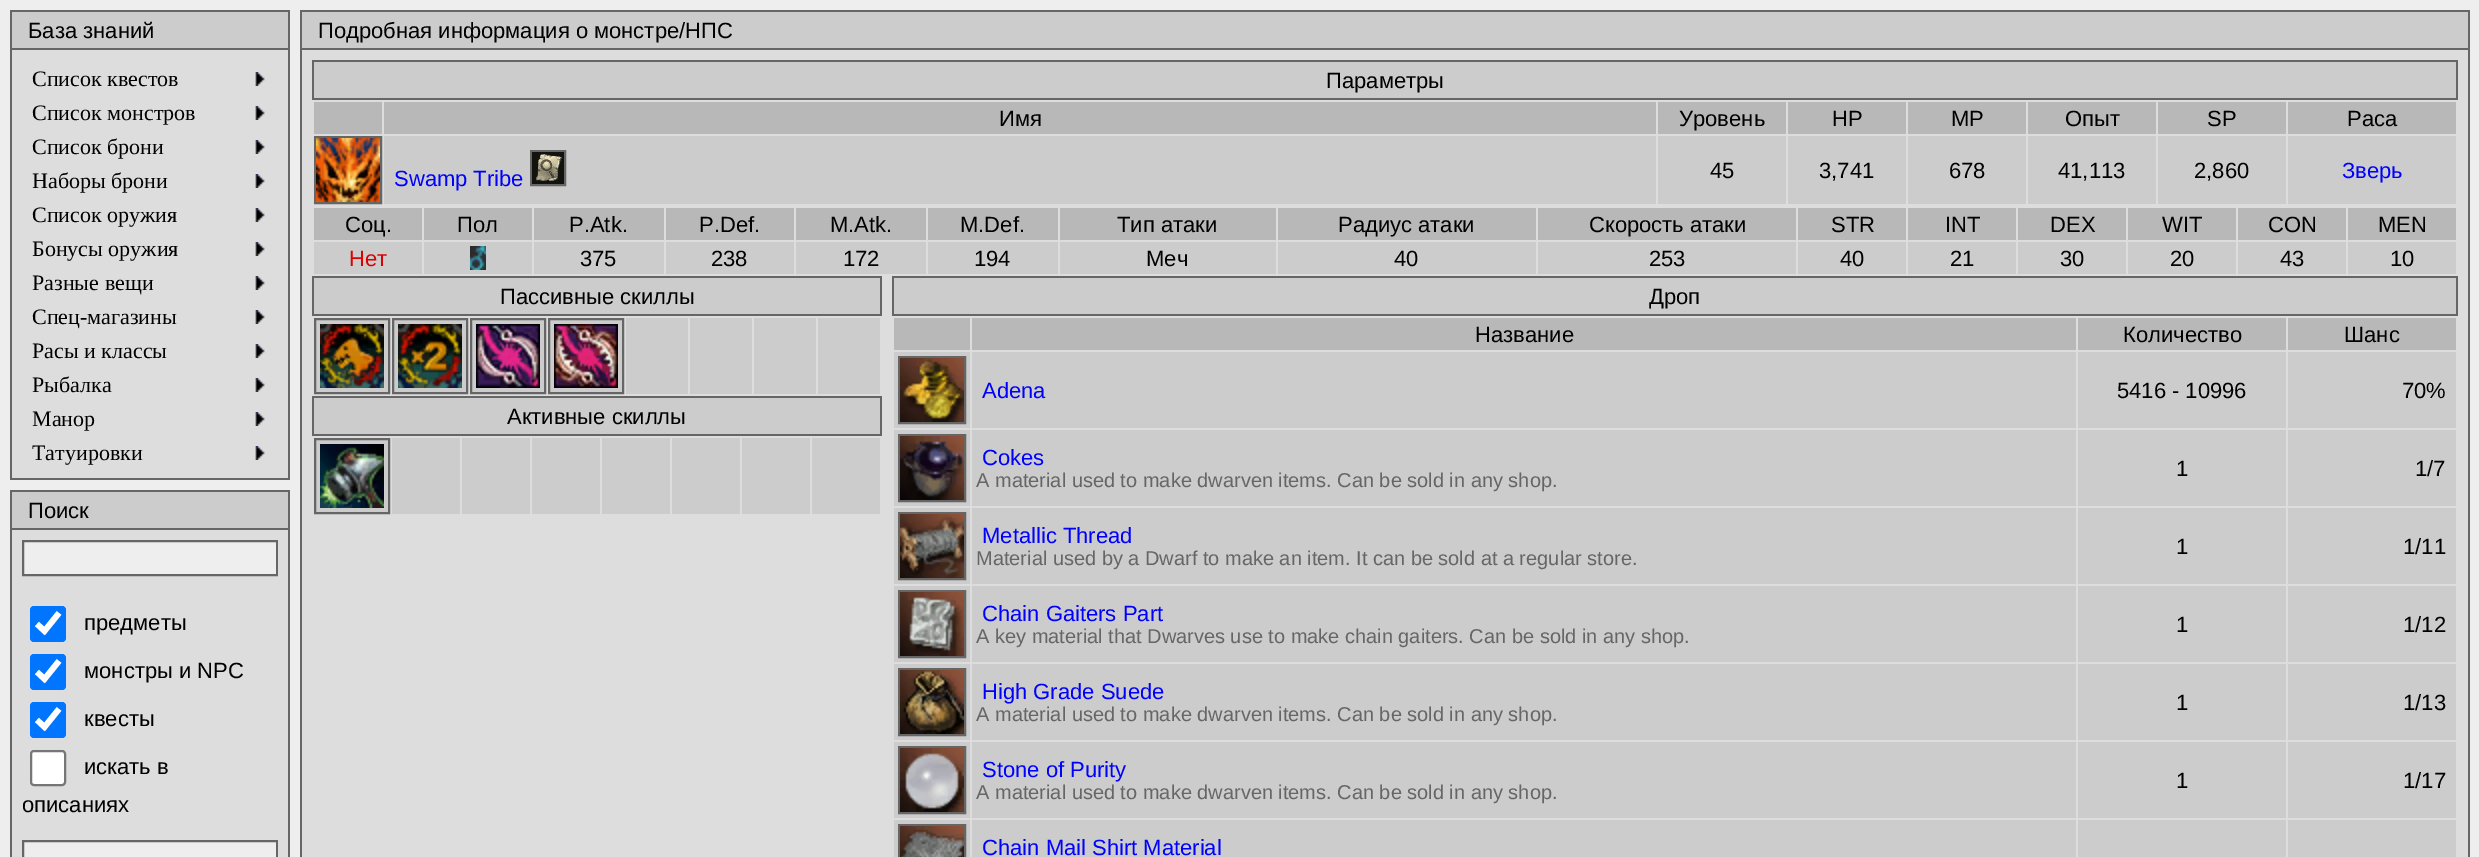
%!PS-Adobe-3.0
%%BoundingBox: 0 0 2479 857
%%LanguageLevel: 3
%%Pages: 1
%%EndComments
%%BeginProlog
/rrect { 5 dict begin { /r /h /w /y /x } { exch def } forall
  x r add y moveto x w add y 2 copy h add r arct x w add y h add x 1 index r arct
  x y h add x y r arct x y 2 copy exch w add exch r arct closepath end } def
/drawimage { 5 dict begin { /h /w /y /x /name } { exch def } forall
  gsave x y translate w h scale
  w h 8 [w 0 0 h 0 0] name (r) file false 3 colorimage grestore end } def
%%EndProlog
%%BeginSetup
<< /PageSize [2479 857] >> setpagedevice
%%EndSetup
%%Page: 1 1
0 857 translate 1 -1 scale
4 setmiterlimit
0.933 setgray
0 0 2479 857 rectfill
0.8 setgray
12 12 276 36 rectfill
0.4 setgray
10 10 280 2 rectfill
10 48 268 2 rectfill
10 10 2 460 rectfill
288 10 2 470 rectfill
278 48 12 2 rectfill
0.867 setgray
12 50 276 420 rectfill
(images/1.raw) 255 72 10 14 drawimage
(images/1.raw) 255 106 10 14 drawimage
(images/1.raw) 255 140 10 14 drawimage
(images/1.raw) 255 174 10 14 drawimage
(images/1.raw) 255 208 10 14 drawimage
(images/1.raw) 255 242 10 14 drawimage
(images/1.raw) 255 276 10 14 drawimage
(images/1.raw) 255 310 10 14 drawimage
(images/1.raw) 255 344 10 14 drawimage
(images/1.raw) 255 378 10 14 drawimage
(images/1.raw) 255 412 10 14 drawimage
(images/1.raw) 255 446 10 14 drawimage
12 470 276 8 rectfill
0.4 setgray
10 478 280 2 rectfill
10 470 2 10 rectfill
0.8 setgray
12 492 276 36 rectfill
0.4 setgray
10 490 280 2 rectfill
10 528 268 2 rectfill
10 490 2 367 rectfill
288 490 2 367 rectfill
278 528 12 2 rectfill
0.867 setgray
12 530 10 327 rectfill
22 530 256 310 rectfill
0.933 setgray
newpath 23 541 moveto 277 541 lineto 277 575 lineto 23 575 lineto closepath gsave fill grestore
0.4 setgray
2 setlinewidth
stroke
0 0.459 1 setrgbcolor
30 606 36 36 4 rrect fill
1 setgray
5.8 setlinewidth
newpath 37 624 moveto 44.5 631 lineto 59 613 lineto stroke
0 0.459 1 setrgbcolor
30 654 36 36 4 rrect fill
1 setgray
newpath 37 672 moveto 44.5 679 lineto 59 661 lineto stroke
0 0.459 1 setrgbcolor
30 702 36 36 4 rrect fill
1 setgray
newpath 37 720 moveto 44.5 727 lineto 59 709 lineto stroke
31 751 34 34 3 rrect gsave fill grestore
0.463 setgray
2 setlinewidth
stroke
0.4 setgray
23 841 254 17 rectstroke
0.867 setgray
278 530 10 327 rectfill
0.8 setgray
302 12 2166 36 rectfill
0.4 setgray
300 10 2170 2 rectfill
300 48 2158 2 rectfill
300 10 2 847 rectfill
2468 10 2 847 rectfill
2458 48 12 2 rectfill
0.867 setgray
302 50 2166 807 rectfill
0.8 setgray
314 62 2142 36 rectfill
0.4 setgray
312 60 2146 2 rectfill
312 98 2134 2 rectfill
312 60 2 40 rectfill
2456 60 2 40 rectfill
2446 98 12 2 rectfill
0.722 setgray
314 102 68 32 rectfill
384 102 1272 32 rectfill
1658 102 128 32 rectfill
1788 102 118 32 rectfill
1908 102 118 32 rectfill
2028 102 128 32 rectfill
2158 102 128 32 rectfill
2288 102 168 32 rectfill
0.4 setgray
315 137 66 66 rectstroke
(images/2.raw) 316 138 64 64 drawimage
0.8 setgray
384 136 1272 68 rectfill
0.4 setgray
531 151 34 34 rectstroke
(images/3.raw) 532 152 32 32 drawimage
0.8 setgray
1658 136 128 68 rectfill
1788 136 118 68 rectfill
1908 136 118 68 rectfill
2028 136 128 68 rectfill
2158 136 128 68 rectfill
2288 136 168 68 rectfill
0.722 setgray
314 208 108 32 rectfill
424 208 108 32 rectfill
534 208 130 32 rectfill
666 208 128 32 rectfill
796 208 130 32 rectfill
928 208 130 32 rectfill
1060 208 216 32 rectfill
1278 208 258 32 rectfill
1538 208 258 32 rectfill
1798 208 108 32 rectfill
1908 208 108 32 rectfill
2018 208 108 32 rectfill
2128 208 108 32 rectfill
2238 208 108 32 rectfill
2348 208 108 32 rectfill
0.8 setgray
314 242 108 32 rectfill
424 242 108 32 rectfill
(images/4.raw) 470 246 16 24 drawimage
534 242 130 32 rectfill
666 242 128 32 rectfill
796 242 130 32 rectfill
928 242 130 32 rectfill
1060 242 216 32 rectfill
1278 242 258 32 rectfill
1538 242 258 32 rectfill
1798 242 108 32 rectfill
1908 242 108 32 rectfill
2018 242 108 32 rectfill
2128 242 108 32 rectfill
2238 242 108 32 rectfill
2348 242 108 32 rectfill
314 278 566 36 rectfill
0.4 setgray
312 276 570 2 rectfill
312 314 558 2 rectfill
312 276 2 40 rectfill
880 276 2 40 rectfill
870 314 12 2 rectfill
0.8 setgray
newpath 315 319 moveto 389 319 lineto 389 393 lineto 315 393 lineto closepath gsave fill grestore
0.4 setgray
stroke
(images/5.raw) 320 324 64 64 drawimage
0.8 setgray
newpath 393 319 moveto 467 319 lineto 467 393 lineto 393 393 lineto closepath gsave fill grestore
0.4 setgray
stroke
(images/6.raw) 398 324 64 64 drawimage
0.8 setgray
newpath 471 319 moveto 545 319 lineto 545 393 lineto 471 393 lineto closepath gsave fill grestore
0.4 setgray
stroke
(images/7.raw) 476 324 64 64 drawimage
0.8 setgray
newpath 549 319 moveto 623 319 lineto 623 393 lineto 549 393 lineto closepath gsave fill grestore
0.4 setgray
stroke
(images/8.raw) 554 324 64 64 drawimage
0.8 setgray
626 318 62 76 rectfill
690 318 62 76 rectfill
754 318 62 76 rectfill
818 318 62 76 rectfill
314 398 566 36 rectfill
0.4 setgray
312 396 570 2 rectfill
312 434 558 2 rectfill
312 396 2 40 rectfill
880 396 2 40 rectfill
870 434 12 2 rectfill
0.8 setgray
newpath 315 439 moveto 389 439 lineto 389 513 lineto 315 513 lineto closepath gsave fill grestore
0.4 setgray
stroke
(images/9.raw) 320 444 64 64 drawimage
0.8 setgray
392 438 68 76 rectfill
462 438 68 76 rectfill
532 438 68 76 rectfill
602 438 68 76 rectfill
672 438 68 76 rectfill
742 438 68 76 rectfill
812 438 68 76 rectfill
894 278 1562 36 rectfill
0.4 setgray
892 276 1566 2 rectfill
892 314 1554 2 rectfill
892 276 2 40 rectfill
2456 276 2 40 rectfill
2446 314 12 2 rectfill
0.722 setgray
894 318 76 32 rectfill
972 318 1104 32 rectfill
2078 318 208 32 rectfill
2288 318 168 32 rectfill
0.8 setgray
894 352 76 76 rectfill
0.4 setgray
899 357 66 66 rectstroke
(images/10.raw) 900 358 64 64 drawimage
0.8 setgray
972 352 1104 76 rectfill
2078 352 208 76 rectfill
2288 352 168 76 rectfill
894 430 76 76 rectfill
0.4 setgray
899 435 66 66 rectstroke
(images/11.raw) 900 436 64 64 drawimage
0.8 setgray
972 430 1104 76 rectfill
2078 430 208 76 rectfill
2288 430 168 76 rectfill
894 508 76 76 rectfill
0.4 setgray
899 513 66 66 rectstroke
(images/12.raw) 900 514 64 64 drawimage
0.8 setgray
972 508 1104 76 rectfill
2078 508 208 76 rectfill
2288 508 168 76 rectfill
894 586 76 76 rectfill
0.4 setgray
899 591 66 66 rectstroke
(images/13.raw) 900 592 64 64 drawimage
0.8 setgray
972 586 1104 76 rectfill
2078 586 208 76 rectfill
2288 586 168 76 rectfill
894 664 76 76 rectfill
0.4 setgray
899 669 66 66 rectstroke
(images/14.raw) 900 670 64 64 drawimage
0.8 setgray
972 664 1104 76 rectfill
2078 664 208 76 rectfill
2288 664 168 76 rectfill
894 742 76 76 rectfill
0.4 setgray
899 747 66 66 rectstroke
(images/15.raw) 900 748 64 64 drawimage
0.8 setgray
972 742 1104 76 rectfill
2078 742 208 76 rectfill
2288 742 168 76 rectfill
894 820 76 37 rectfill
0.4 setgray
899 825 66 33 rectstroke
(images/16.raw) 900 826 64 31 drawimage
0.8 setgray
972 820 1104 37 rectfill
2078 820 208 37 rectfill
2288 820 168 37 rectfill
/LiberationSans-Regular [22 0 0 -22 0 0] selectfont
0 setgray
28 38 moveto (База знаний) show
/LiberationSerif-Regular [22 0 0 -22 0 0] selectfont
32 86 moveto (Список квестов) show
32 120 moveto (Список монстров) show
32 154 moveto (Список брони) show
32 188 moveto (Наборы брони) show
32 222 moveto (Список оружия) show
32 256 moveto (Бонусы оружия) show
32 290 moveto (Разные вещи) show
32 324 moveto (Спец-магазины) show
32 358 moveto (Расы и классы) show
32 392 moveto (Рыбалка) show
32 426 moveto (Манор) show
32 460 moveto (Татуировки) show
/LiberationSans-Regular [22 0 0 -22 0 0] selectfont
28 518 moveto (Поиск) show
84 630 moveto (предметы) show
84 678 moveto (монстры и NPC) show
84 726 moveto (квесты) show
84 774 moveto (искать в) show
22 812 moveto (описаниях) show
318 38 moveto (Подробная информация о монстре/НПС) show
1326 88 moveto (Параметры) show
999 126 moveto (Имя) show
1679 126 moveto (Уровень) show
1832 126 moveto (HP) show
1951 126 moveto (MP) show
2065 126 moveto (Опыт) show
2207 126 moveto (SP) show
2347 126 moveto (Раса) show
0 0 1 setrgbcolor
394 186 moveto (Swamp Tribe) show
0 setgray
1710 178 moveto (45) show
1819 178 moveto (3,741) show
1949 178 moveto (678) show
2058 178 moveto (41,113) show
2194 178 moveto (2,860) show
0 0 1 setrgbcolor
2342 178 moveto (Зверь) show
0 setgray
345 232 moveto (Соц.) show
457 232 moveto (Пол) show
569 232 moveto (P.Atk.) show
699 232 moveto (P.Def.) show
830 232 moveto (M.Atk.) show
960 232 moveto (M.Def.) show
1117 232 moveto (Тип атаки) show
1338 232 moveto (Радиус атаки) show
1589 232 moveto (Скорость атаки) show
1831 232 moveto (STR) show
1945 232 moveto (INT) show
2050 232 moveto (DEX) show
2162 232 moveto (WIT) show
2268 232 moveto (CON) show
2378 232 moveto (MEN) show
0.867 0 0 setrgbcolor
349 266 moveto (Нет) show
0 setgray
580 266 moveto (375) show
711 266 moveto (238) show
843 266 moveto (172) show
974 266 moveto (194) show
1146 266 moveto (Меч) show
1394 266 moveto (40) show
1649 266 moveto (253) show
1840 266 moveto (40) show
1950 266 moveto (21) show
2060 266 moveto (30) show
2170 266 moveto (20) show
2280 266 moveto (43) show
2390 266 moveto (10) show
500 304 moveto (Пассивные скиллы) show
507 424 moveto (Активные скиллы) show
1649 304 moveto (Дроп) show
1475 342 moveto (Название) show
2123 342 moveto (Количество) show
2344 342 moveto (Шанс) show
0 0 1 setrgbcolor
982 398 moveto (Adena) show
0 setgray
2117 398 moveto (5416 - 10996) show
2402 398 moveto (70%) show
0 0 1 setrgbcolor
982 465 moveto (Cokes) show
/LiberationSans-Regular [20 0 0 -20 0 0] selectfont
0.4 setgray
976 487 moveto (A material used to make dwarven items. Can be sold in any shop.) show
/LiberationSans-Regular [22 0 0 -22 0 0] selectfont
0 setgray
2176 476 moveto (1) show
2415 476 moveto (1/7) show
0 0 1 setrgbcolor
982 543 moveto (Metallic Thread) show
/LiberationSans-Regular [20 0 0 -20 0 0] selectfont
0.4 setgray
976 565 moveto (Material used by a Dwarf to make an item. It can be sold at a regular store.) show
/LiberationSans-Regular [22 0 0 -22 0 0] selectfont
0 setgray
2176 554 moveto (1) show
2403 554 moveto (1/11) show
0 0 1 setrgbcolor
982 621 moveto (Chain Gaiters Part) show
/LiberationSans-Regular [20 0 0 -20 0 0] selectfont
0.4 setgray
976 643 moveto (A key material that Dwarves use to make chain gaiters. Can be sold in any shop.) show
/LiberationSans-Regular [22 0 0 -22 0 0] selectfont
0 setgray
2176 632 moveto (1) show
2403 632 moveto (1/12) show
0 0 1 setrgbcolor
982 699 moveto (High Grade Suede) show
/LiberationSans-Regular [20 0 0 -20 0 0] selectfont
0.4 setgray
976 721 moveto (A material used to make dwarven items. Can be sold in any shop.) show
/LiberationSans-Regular [22 0 0 -22 0 0] selectfont
0 setgray
2176 710 moveto (1) show
2403 710 moveto (1/13) show
0 0 1 setrgbcolor
982 777 moveto (Stone of Purity) show
/LiberationSans-Regular [20 0 0 -20 0 0] selectfont
0.4 setgray
976 799 moveto (A material used to make dwarven items. Can be sold in any shop.) show
/LiberationSans-Regular [22 0 0 -22 0 0] selectfont
0 setgray
2176 788 moveto (1) show
2403 788 moveto (1/17) show
0 0 1 setrgbcolor
982 855 moveto (Chain Mail Shirt Material) show
showpage
%%EOF
